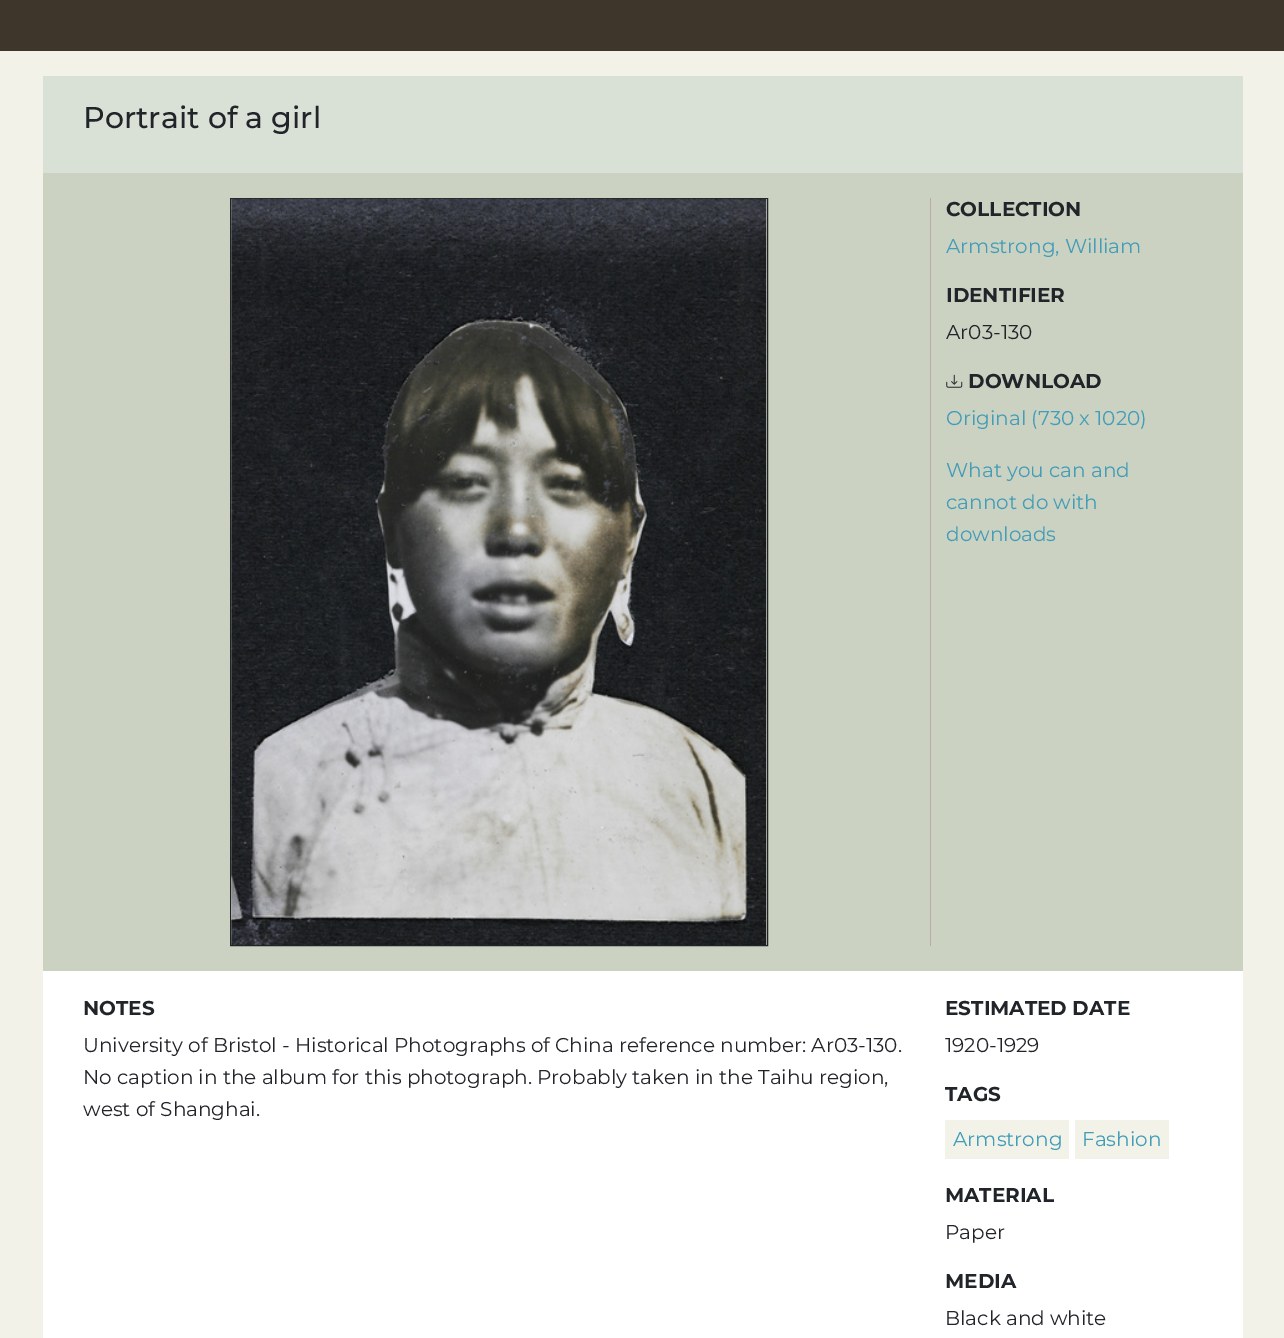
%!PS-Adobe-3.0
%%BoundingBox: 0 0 1284 1338
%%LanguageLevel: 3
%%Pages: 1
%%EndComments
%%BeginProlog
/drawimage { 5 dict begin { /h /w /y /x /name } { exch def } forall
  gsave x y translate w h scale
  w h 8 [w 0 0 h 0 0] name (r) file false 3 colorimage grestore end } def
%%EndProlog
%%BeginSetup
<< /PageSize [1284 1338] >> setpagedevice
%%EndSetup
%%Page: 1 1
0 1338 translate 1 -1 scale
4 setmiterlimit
0.949 0.949 0.914 setrgbcolor
0 0 1284 1338 rectfill
0.247 0.212 0.169 setrgbcolor
0 0 1284 51 rectfill
1 setgray
43 971 1200 367 rectfill
0.851 0.878 0.839 setrgbcolor
43 76 1200 97 rectfill
0.796 0.824 0.761 setrgbcolor
43 173 1200 798 rectfill
0.129 0.145 0.161 setrgbcolor
230.5 198.5 537 747 rectstroke
(images/1.raw) 231 198 536 747 drawimage
0.733 0.667 0.667 setrgbcolor
930 198 1 748 rectfill
(images/2.raw) 946 374 17 14 drawimage
0.949 0.949 0.914 setrgbcolor
945 1120 124 39 rectfill
1075 1120 94 39 rectfill
/Montserrat-Medium [30 0 0 -30 0 0] selectfont
0.129 0.145 0.161 setrgbcolor
83 128 moveto (Portrait of a girl) show
/Montserrat-Bold [20 0 0 -20 0 0] selectfont
946 216 moveto (COLLECTION) show
/Montserrat-Regular [20 0 0 -20 0 0] selectfont
0.255 0.616 0.722 setrgbcolor
946 253 moveto (Armstrong, William) show
/Montserrat-Bold [20 0 0 -20 0 0] selectfont
0.129 0.145 0.161 setrgbcolor
946 302 moveto (IDENTIFIER) show
/Montserrat-Regular [20 0 0 -20 0 0] selectfont
946 339 moveto (Ar03-130) show
/Montserrat-Bold [20 0 0 -20 0 0] selectfont
968 388 moveto (DOWNLOAD) show
/Montserrat-Regular [20 0 0 -20 0 0] selectfont
0.255 0.616 0.722 setrgbcolor
946 425 moveto (Original \(730 x 1020\)) show
946 477 moveto (What you can and) show
946 509 moveto (cannot do with) show
946 541 moveto (downloads) show
/Montserrat-Bold [20 0 0 -20 0 0] selectfont
0.129 0.145 0.161 setrgbcolor
83 1015 moveto (NOTES) show
/Montserrat-Regular [20 0 0 -20 0 0] selectfont
83 1052 moveto (University of Bristol - Historical Photographs of China reference number: Ar03-130.) show
83 1084 moveto (No caption in the album for this photograph. Probably taken in the Taihu region,) show
83 1116 moveto (west of Shanghai.) show
/Montserrat-Bold [20 0 0 -20 0 0] selectfont
945 1015 moveto (ESTIMATED DATE) show
/Montserrat-Regular [20 0 0 -20 0 0] selectfont
945 1052 moveto (1920-1929) show
/Montserrat-Bold [20 0 0 -20 0 0] selectfont
945 1101 moveto (TAGS) show
/Montserrat-Regular [20 0 0 -20 0 0] selectfont
0.255 0.616 0.722 setrgbcolor
953 1146 moveto (Armstrong) show
1082 1146 moveto (Fashion) show
/Montserrat-Bold [20 0 0 -20 0 0] selectfont
0.129 0.145 0.161 setrgbcolor
945 1202 moveto (MATERIAL) show
/Montserrat-Regular [20 0 0 -20 0 0] selectfont
945 1239 moveto (Paper) show
/Montserrat-Bold [20 0 0 -20 0 0] selectfont
945 1288 moveto (MEDIA) show
/Montserrat-Regular [20 0 0 -20 0 0] selectfont
945 1325 moveto (Black and white) show
showpage
%%EOF
